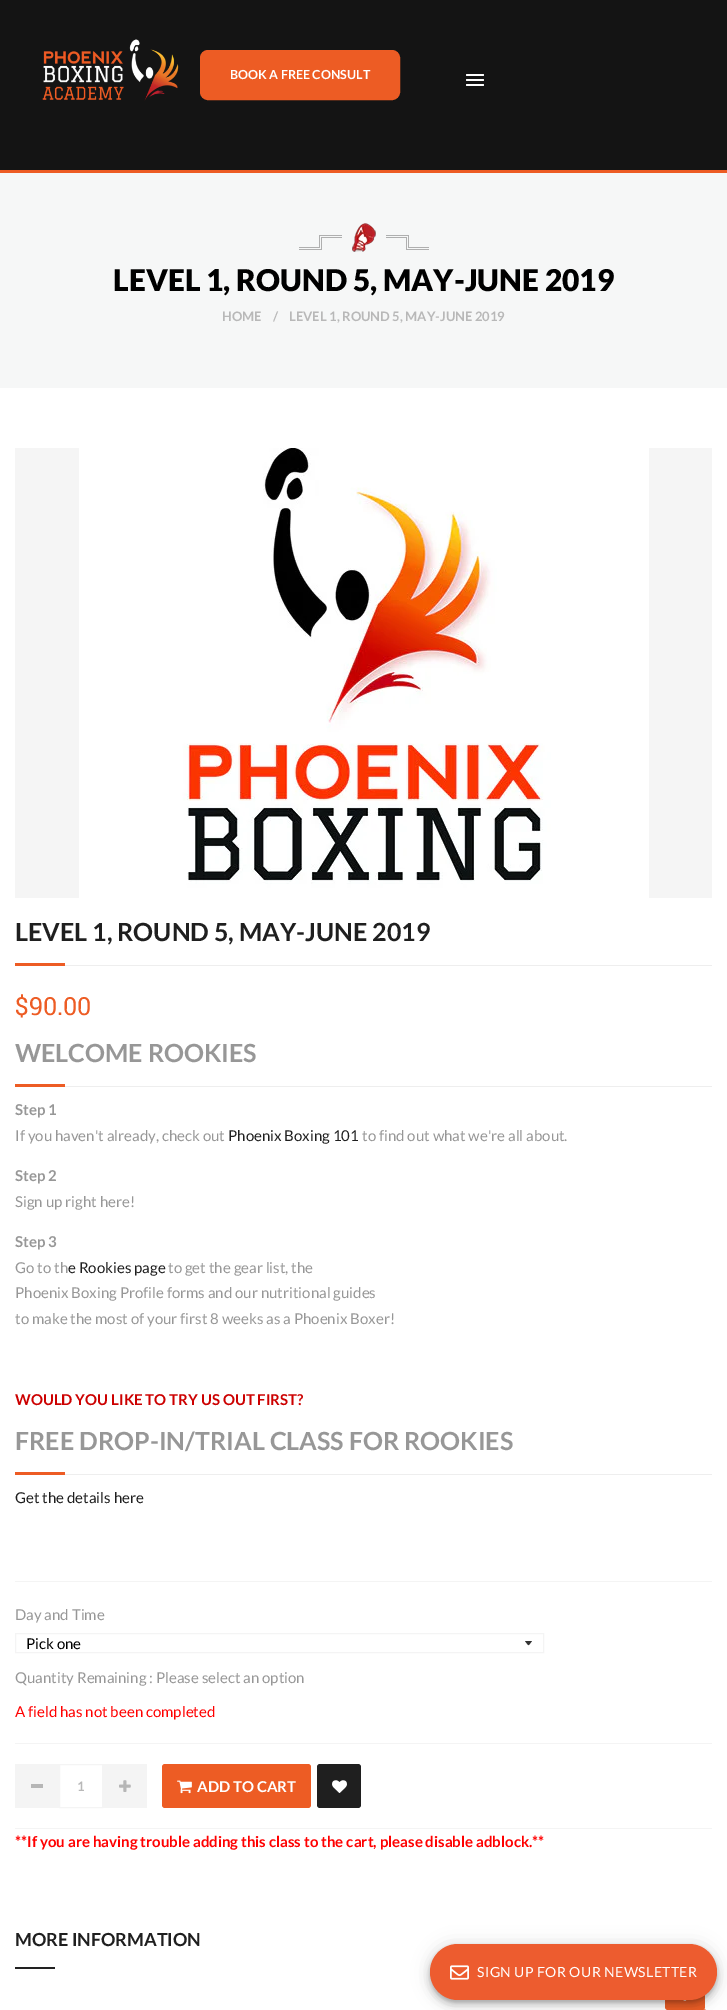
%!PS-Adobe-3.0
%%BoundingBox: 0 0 727 2010
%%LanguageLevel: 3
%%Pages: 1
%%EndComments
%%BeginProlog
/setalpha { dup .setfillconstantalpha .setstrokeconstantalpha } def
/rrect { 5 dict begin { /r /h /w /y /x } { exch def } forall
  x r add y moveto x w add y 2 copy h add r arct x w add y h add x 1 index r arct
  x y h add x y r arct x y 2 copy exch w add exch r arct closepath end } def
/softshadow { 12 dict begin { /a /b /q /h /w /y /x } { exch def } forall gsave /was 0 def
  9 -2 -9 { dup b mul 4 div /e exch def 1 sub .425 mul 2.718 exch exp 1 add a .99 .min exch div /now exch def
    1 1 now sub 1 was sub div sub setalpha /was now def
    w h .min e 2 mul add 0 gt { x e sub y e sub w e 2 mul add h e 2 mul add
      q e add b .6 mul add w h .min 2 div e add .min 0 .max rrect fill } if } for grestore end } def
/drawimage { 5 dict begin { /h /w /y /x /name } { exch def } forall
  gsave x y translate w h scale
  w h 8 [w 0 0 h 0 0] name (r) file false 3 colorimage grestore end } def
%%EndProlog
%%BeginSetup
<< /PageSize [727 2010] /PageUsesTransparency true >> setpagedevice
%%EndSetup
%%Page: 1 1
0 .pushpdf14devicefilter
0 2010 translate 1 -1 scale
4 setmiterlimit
1 setgray
0 0 727 2010 rectfill
0.078 setgray
0 0 727 170 rectfill
0.929 0.361 0.141 setrgbcolor
0 170 727 3 rectfill
(images/1.raw) 42 39 137 62 drawimage
201 51 198 48 7 rrect gsave fill grestore
2 setlinewidth
stroke
1 setgray
466 74 18 2 1 rrect fill
466 79 18 2 1 rrect fill
466 84 18 2 1 rrect fill
0.965 0.969 0.969 setrgbcolor
0 173 727 215 rectfill
(images/2.raw) 299 223 130 29 drawimage
0.961 setgray
15 448 697 450 rectfill
(images/3.raw) 79 448 570 450 drawimage
0.933 setgray
65 965 647 1 rectfill
0.929 0.361 0.141 setrgbcolor
15 963 50 3 rectfill
0.957 setgray
15 1581 697 1 rectfill
0.933 setgray
65 1086 647 1 rectfill
0.929 0.361 0.141 setrgbcolor
15 1084 50 3 rectfill
0.933 setgray
65 1474 647 1 rectfill
0.929 0.361 0.141 setrgbcolor
15 1472 50 3 rectfill
0.957 setgray
15 1743 697 1 rectfill
0.2 setgray
newpath 525 1641 moveto 529.5 1646.5 527.5 1646.5 532 1641 curveto closepath fill
0.957 setgray
1 setlinewidth
15.5 1633.5 528 19 rectstroke
15 1828 697 1 rectfill
15 1764 44 44 rectfill
0.714 setgray
31 1784 12 4 rectfill
0.957 setgray
59.5 1764.5 43 43 rectstroke
103 1764 44 44 rectfill
(images/4.raw) 119 1780 12 12 drawimage
0.929 0.361 0.141 setrgbcolor
162 1764 149 44 3 rrect fill
(images/5.raw) 177 1780 15 14 drawimage
0.122 setgray
317 1764 44 44 3 rrect fill
(images/6.raw) 332 1780 15 13 drawimage
0.133 setgray
15 1967 40 2 rectfill
0.949 0.522 0.357 setrgbcolor
702 2009 4 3 2 rrect fill
0.929 0.361 0.141 setrgbcolor
665 1974 40 36 3 rrect fill
(images/8.raw) 683 2000 4 1 drawimage
0 setgray
430 1945 287 56 28 9 0.12 softshadow
430 1950 287 56 28 5 0.14 softshadow
431 1948 285 54 27 2.5 0.2 softshadow
0.929 0.361 0.184 setrgbcolor
430 1944 287 56 28 rrect fill
(images/7.raw) 450 1965 19 15 drawimage
/Lato-Bold [12.5 0 0 -12.5 0 0] selectfont
1 setgray
230 79 moveto (BOOK A FREE CONSULT) show
/Lato-Black [30 0 0 -30 0 0] selectfont
0 setgray
113 291 moveto (LEVEL 1, ROUND 5, MAY-JUNE 2019) show
/Lato-Bold [13 0 0 -13 0 0] selectfont
0.722 setgray
222 321 moveto (HOME) show
273 321 moveto (/) show
289 321 moveto (LEVEL 1, ROUND 5, MAY-JUNE 2019) show
/Lato-Bold [25 0 0 -25 0 0] selectfont
0.122 setgray
15 941 moveto (LEVEL 1, ROUND 5, MAY-JUNE 2019) show
/RobotoSlab-Regular [25 0 0 -25 0 0] selectfont
0.929 0.361 0.141 setrgbcolor
15 1015 moveto ($90.00) show
/Lato-Bold [25 0 0 -25 0 0] selectfont
0.592 setgray
15 1062 moveto (WELCOME ROOKIES) show
/Lato-Bold [15 0 0 -15 0 0] selectfont
15 1115 moveto (Step 1) show
/Lato-Regular [15 0 0 -15 0 0] selectfont
15 1141 moveto (If you haven't already, check out) show
0.122 setgray
228 1141 moveto (Phoenix Boxing 101) show
0.592 setgray
362 1141 moveto (to find out what we're all about.) show
/Lato-Bold [15 0 0 -15 0 0] selectfont
15 1181 moveto (Step 2) show
/Lato-Regular [15 0 0 -15 0 0] selectfont
15 1207 moveto (Sign up right here!) show
/Lato-Bold [15 0 0 -15 0 0] selectfont
15 1247 moveto (Step 3) show
/Lato-Regular [15 0 0 -15 0 0] selectfont
15 1273 moveto (Go to th) show
0.122 setgray
68 1273 moveto (e Rookies page) show
0.592 setgray
168 1273 moveto (to get the gear list, the) show
15 1298 moveto (Phoenix Boxing Profile forms and our nutritional guides) show
15 1324 moveto (to make the most of your first 8 weeks as a Phoenix Boxer!) show
/Lato-Bold [15 0 0 -15 0 0] selectfont
0.8 0 0 setrgbcolor
15 1405 moveto (WOULD YOU LIKE TO TRY US OUT FIRST?) show
/Lato-Bold [25 0 0 -25 0 0] selectfont
0.592 setgray
15 1450 moveto (FREE DROP-IN/TRIAL CLASS FOR ROOKIES) show
/Lato-Regular [15 0 0 -15 0 0] selectfont
0.122 setgray
15 1503 moveto (Get the details here) show
0.592 setgray
15 1620 moveto (Day and Time) show
0 setgray
26 1649 moveto (Pick one) show
0.592 setgray
15 1683 moveto (Quantity Remaining : Please select an option) show
1 0 0 setrgbcolor
15 1717 moveto (A field has not been completed) show
/Lato-Bold [13 0 0 -13 0 0] selectfont
0.722 setgray
77 1791 moveto (1) show
/Lato-Bold [15 0 0 -15 0 0] selectfont
1 setgray
197 1792 moveto (ADD TO CART) show
1 0 0 setrgbcolor
15 1847 moveto (**If you are having trouble adding this class to the cart, please disable adblock.**) show
/Lato-Bold [18 0 0 -18 0 0] selectfont
0.122 setgray
15 1946 moveto (MORE INFORMATION) show
/Lato-Regular [14 0 0 -14 0 0] selectfont
1 setgray
477 1977 moveto 0.4 0 (SIGN UP FOR OUR NEWSLETTER) ashow
.poppdf14devicefilter showpage
%%EOF
